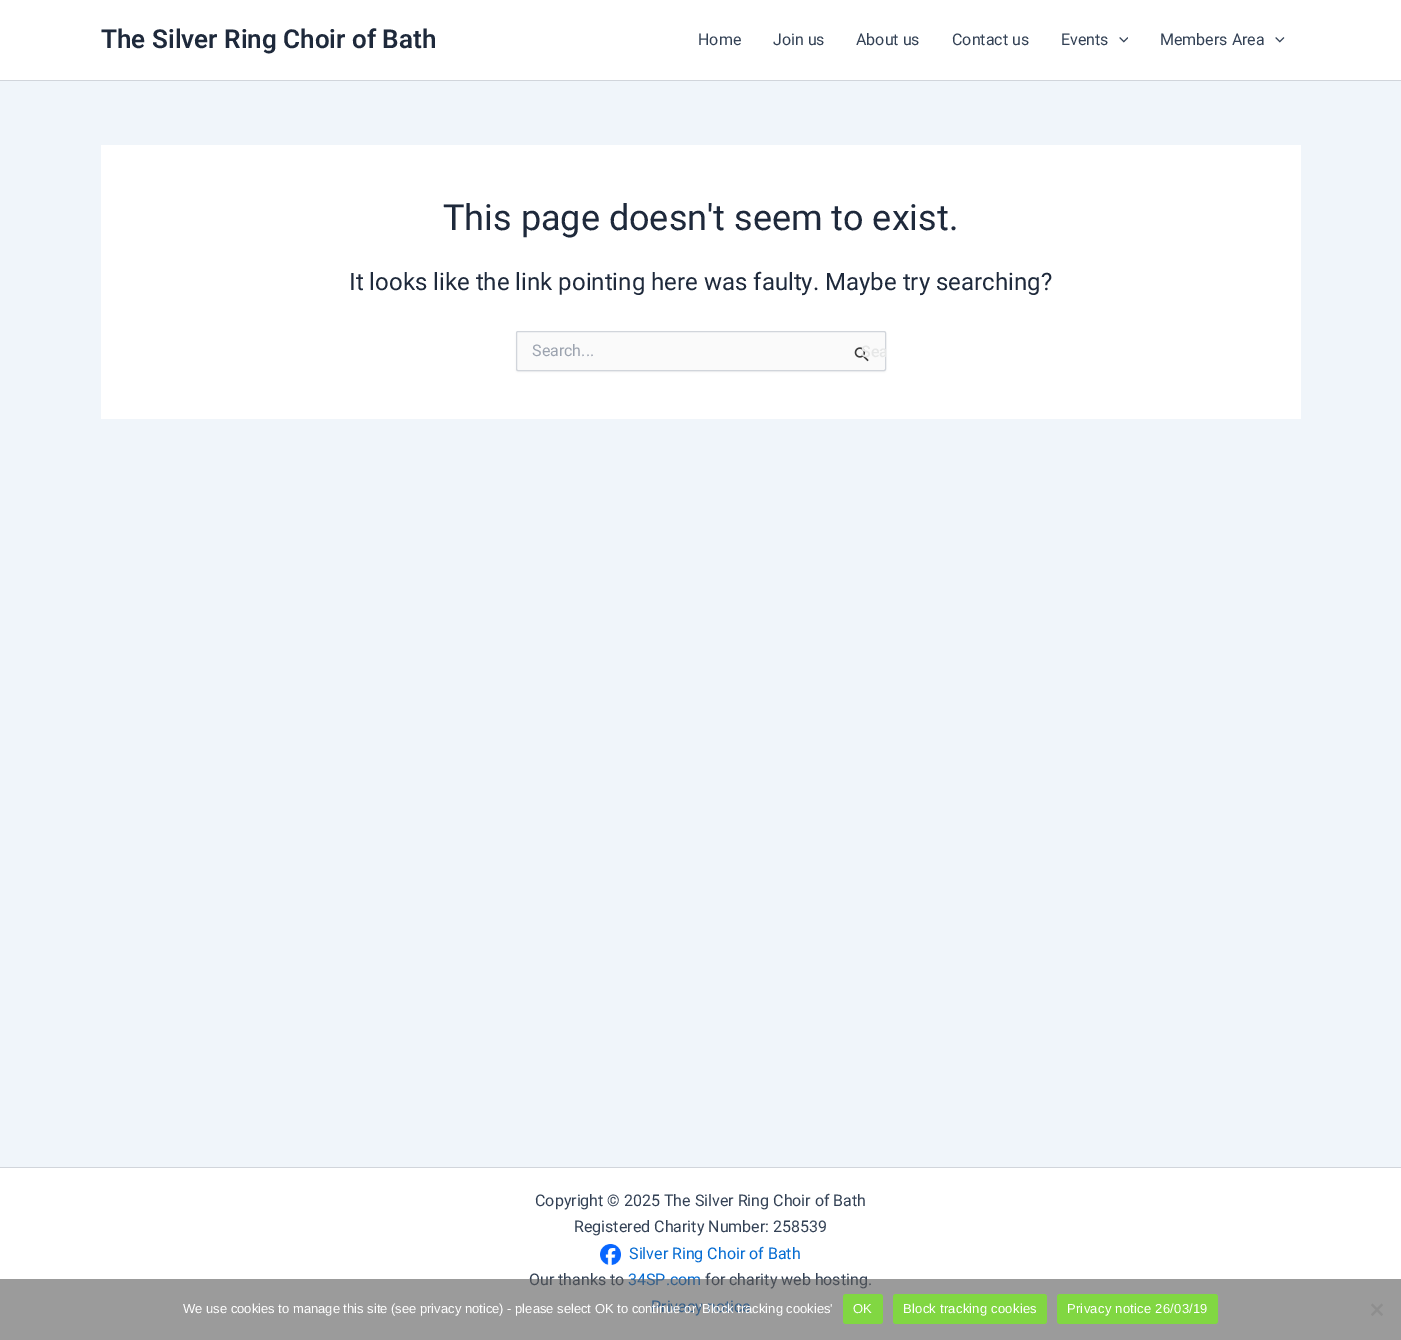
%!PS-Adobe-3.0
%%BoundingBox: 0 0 1401 1340
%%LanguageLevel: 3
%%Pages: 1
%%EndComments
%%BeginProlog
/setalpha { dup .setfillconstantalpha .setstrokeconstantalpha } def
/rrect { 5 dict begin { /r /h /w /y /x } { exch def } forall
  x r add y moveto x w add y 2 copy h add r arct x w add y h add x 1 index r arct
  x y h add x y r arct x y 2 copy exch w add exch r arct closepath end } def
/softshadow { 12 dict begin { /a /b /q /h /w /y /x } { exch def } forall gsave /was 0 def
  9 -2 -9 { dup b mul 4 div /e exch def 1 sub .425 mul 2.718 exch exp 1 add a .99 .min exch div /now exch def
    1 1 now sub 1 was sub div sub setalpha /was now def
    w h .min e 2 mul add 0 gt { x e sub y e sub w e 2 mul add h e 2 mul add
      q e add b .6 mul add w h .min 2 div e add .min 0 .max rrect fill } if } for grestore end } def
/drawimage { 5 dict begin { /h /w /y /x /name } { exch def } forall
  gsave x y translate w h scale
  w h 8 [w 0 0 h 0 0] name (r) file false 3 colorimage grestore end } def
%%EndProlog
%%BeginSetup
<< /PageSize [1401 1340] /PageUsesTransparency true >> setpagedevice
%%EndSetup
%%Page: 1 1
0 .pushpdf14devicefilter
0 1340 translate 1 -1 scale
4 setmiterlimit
0.941 0.961 0.98 setrgbcolor
0 0 1401 1340 rectfill
1 setgray
0 0 1401 80 rectfill
0.82 0.835 0.859 setrgbcolor
0 80 1401 1 rectfill
(images/1.raw) 1119 37 9 6 drawimage
(images/2.raw) 1275 37 10 6 drawimage
1 setgray
101 145 1200 274 rectfill
0 setgray
516 332 370 40 2 1 0.05 softshadow
0.98 setgray
516.5 331.5 369 39 1.5 rrect gsave fill grestore
0.82 0.835 0.859 setrgbcolor
stroke
(images/3.raw) 854 347 15 15 drawimage
1 setgray
0 1168 1401 172 rectfill
0.82 0.835 0.859 setrgbcolor
0 1167 1401 1 rectfill
(images/4.raw) 600 1244 21 21 drawimage
/Roboto-SemiBold [26 0 0 -26 0 0] selectfont
0.118 0.161 0.231 setrgbcolor
101 48 moveto (The Silver Ring Choir of Bath) show
/Roboto-Regular [16 0 0 -16 0 0] selectfont
0.2 0.255 0.333 setrgbcolor
698 45 moveto (Home) show
773 45 moveto (Join us) show
856 45 moveto (About us) show
952 45 moveto (Contact us) show
1061 45 moveto (Events) show
1160 45 moveto (Members Area) show
/Roboto-Regular [36 0 0 -36 0 0] selectfont
0.118 0.161 0.231 setrgbcolor
443 230 moveto (This page doesn't seem to exist.) show
/Roboto-Regular [24 0 0 -24 0 0] selectfont
349 290 moveto (It looks like the link pointing here was faulty. Maybe try searching?) show
/Roboto-Regular [16 0 0 -16 0 0] selectfont
0.612 0.639 0.686 setrgbcolor
532 356 moveto (Search...) show
gsave
841 331 45 42 2 rrect clip newpath
/Roboto-Medium [16 0 0 -16 0 0] selectfont
0.902 0.906 0.906 setrgbcolor
861 357 moveto (Sea) show
grestore
0.2 0.255 0.333 setrgbcolor
535 1206 moveto (Copyright © 2025 The Silver Ring Choir of Bath) show
574 1232 moveto (Registered Charity Number: 258539) show
0.016 0.42 0.824 setrgbcolor
629 1259 moveto (Silver Ring Choir of Bath) show
0.2 0.255 0.333 setrgbcolor
529 1285 moveto (Our thanks to) show
0.016 0.42 0.824 setrgbcolor
628 1285 moveto (34SP.com) show
0.2 0.255 0.333 setrgbcolor
705 1285 moveto (for charity web hosting.) show
0.016 0.42 0.824 setrgbcolor
651 1312 moveto (Privacy notice) show
0.6 setalpha
0.349 setgray
0 1279 1401 61 rectfill
/LiberationSans-Regular [13 0 0 -13 0 0] selectfont
1 setalpha
1 setgray
183 1313 moveto (We use cookies to manage this site \(see privacy notice\) - please select OK to continue or 'Block tracking cookies') show
0.506 0.843 0.259 setrgbcolor
843 1294 40 30 3 rrect fill
1 setgray
853 1313 moveto 0.25 0 (OK) ashow
0.506 0.843 0.259 setrgbcolor
893 1294 154 30 3 rrect fill
1 setgray
903 1313 moveto 0.25 0 (Block tracking cookies) ashow
0.506 0.843 0.259 setrgbcolor
1057 1294 161 30 3 rrect fill
1 setgray
1067 1313 moveto 0.25 0 (Privacy notice 26/03/19) ashow
0.557 setgray
newpath 1381.5 1303.5 moveto 1383 1305 lineto 1372.5 1316 lineto 1371 1314.5 lineto closepath fill
newpath 1371 1305 moveto 1372.5 1303.5 lineto 1383 1314.5 lineto 1381.5 1316 lineto closepath fill
.poppdf14devicefilter showpage
%%EOF
